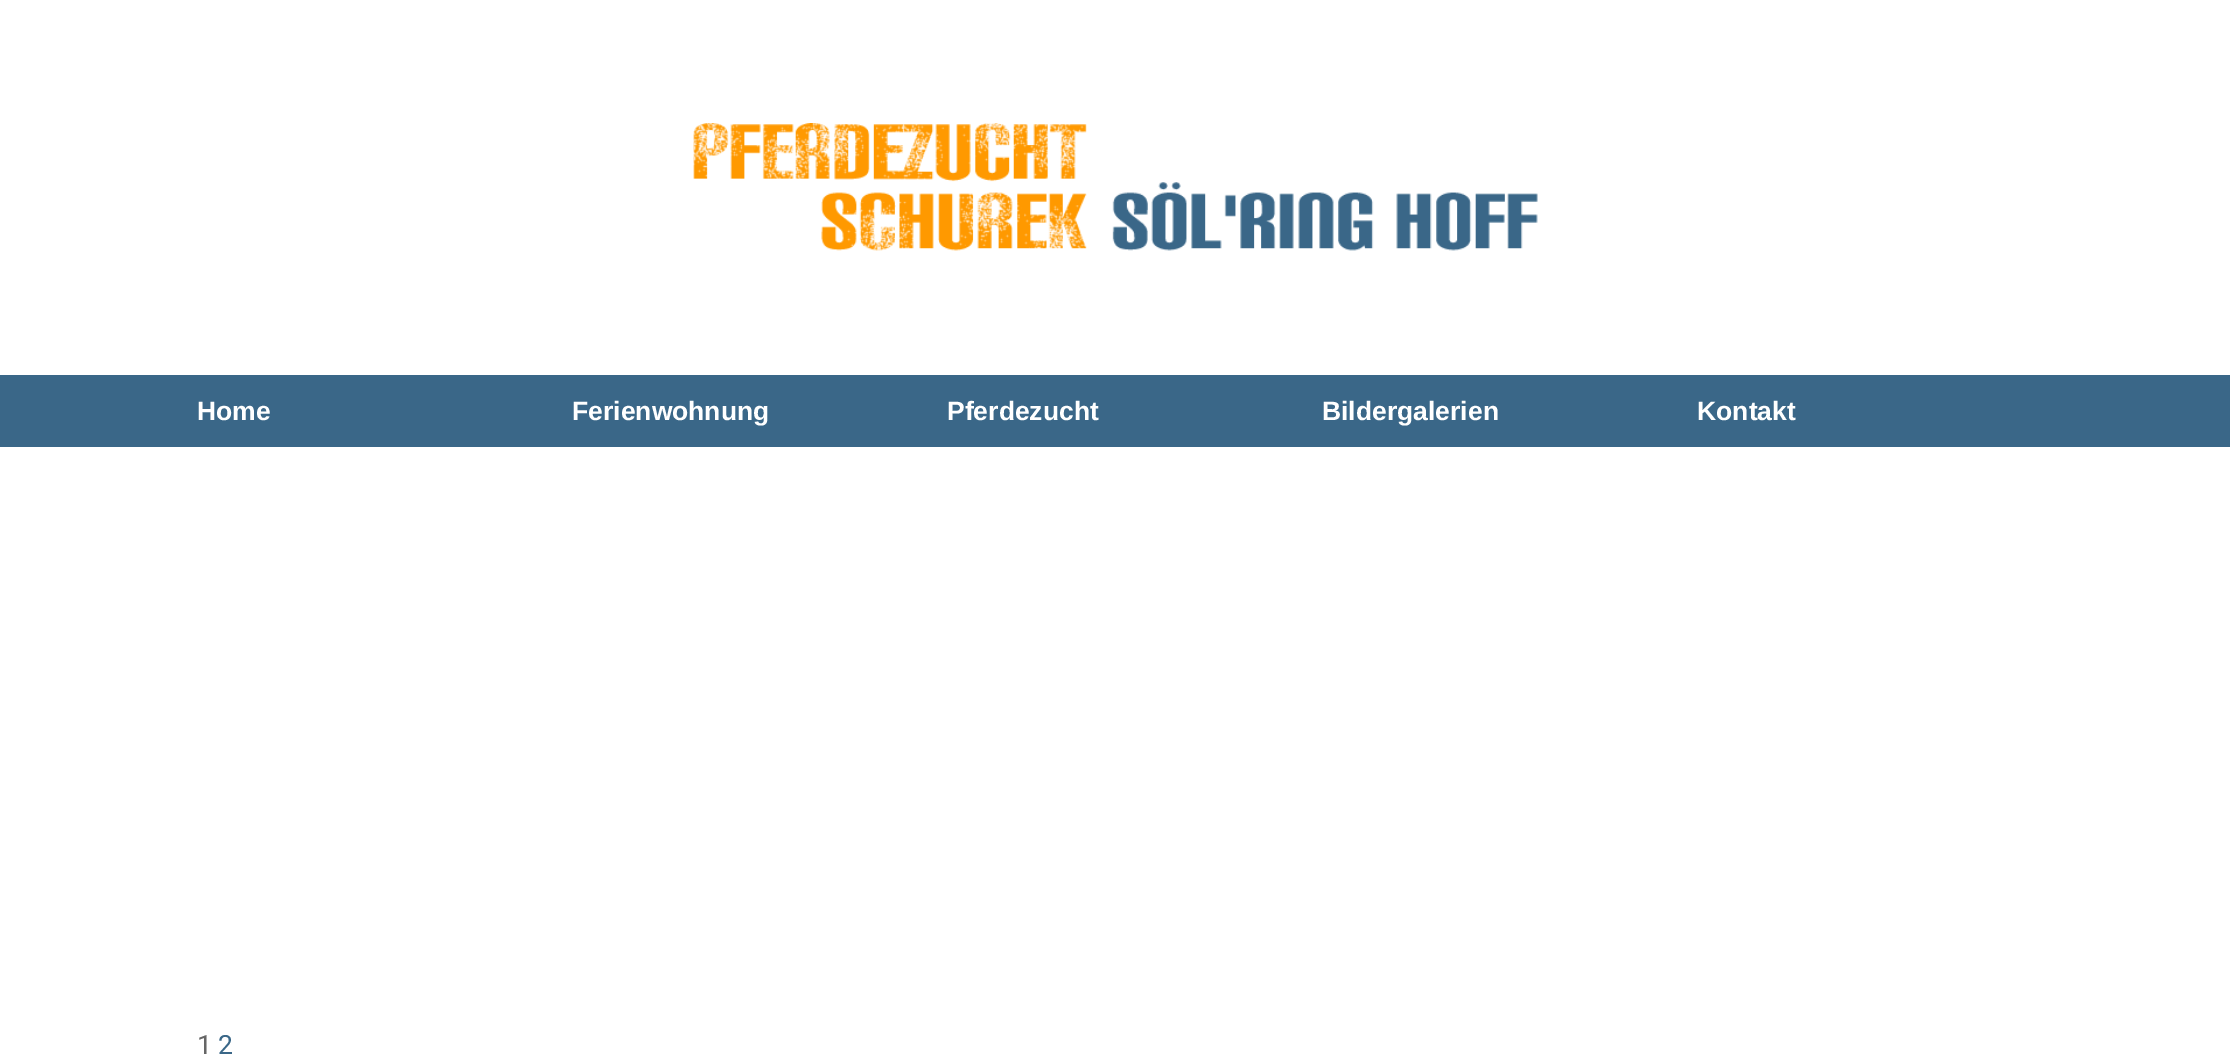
%!PS-Adobe-3.0
%%BoundingBox: 0 0 2230 1063
%%LanguageLevel: 3
%%Pages: 1
%%EndComments
%%BeginProlog
/drawimage { 5 dict begin { /h /w /y /x /name } { exch def } forall
  gsave x y translate w h scale
  w h 8 [w 0 0 h 0 0] name (r) file false 3 colorimage grestore end } def
%%EndProlog
%%BeginSetup
<< /PageSize [2230 1063] >> setpagedevice
%%EndSetup
%%Page: 1 1
0 1063 translate 1 -1 scale
4 setmiterlimit
1 setgray
0 0 2230 1063 rectfill
(images/1.raw) 693 123 845 128 drawimage
0.227 0.404 0.533 setrgbcolor
0 375 2230 72 rectfill
/LiberationSans-Bold [26.5 0 0 -26.5 0 0] selectfont
1 setgray
197 420 moveto (Home) show
572 420 moveto (Ferienwohnung) show
947 420 moveto (Pferdezucht) show
1322 420 moveto (Bildergalerien) show
1697 420 moveto (Kontakt) show
/Roboto-Regular [26.5 0 0 -26.5 0 0] selectfont
0.4 setgray
197 1054 moveto (1) show
0.227 0.404 0.533 setrgbcolor
218 1054 moveto (2) show
showpage
%%EOF
